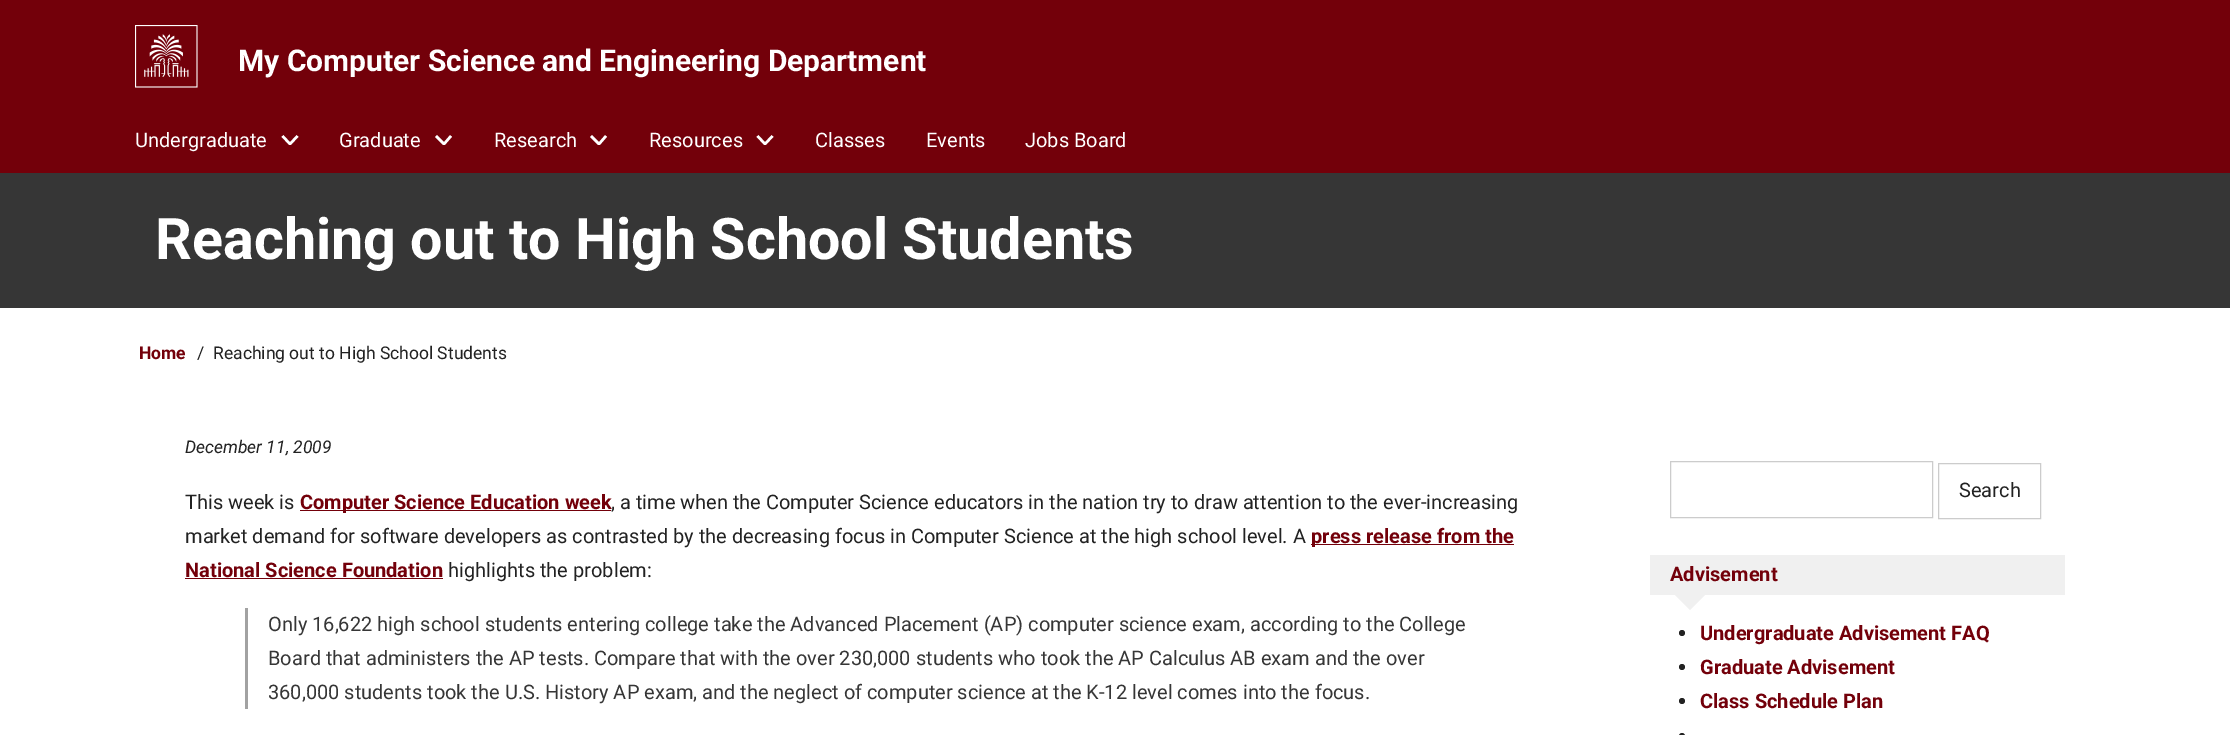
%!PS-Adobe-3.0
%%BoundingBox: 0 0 2230 735
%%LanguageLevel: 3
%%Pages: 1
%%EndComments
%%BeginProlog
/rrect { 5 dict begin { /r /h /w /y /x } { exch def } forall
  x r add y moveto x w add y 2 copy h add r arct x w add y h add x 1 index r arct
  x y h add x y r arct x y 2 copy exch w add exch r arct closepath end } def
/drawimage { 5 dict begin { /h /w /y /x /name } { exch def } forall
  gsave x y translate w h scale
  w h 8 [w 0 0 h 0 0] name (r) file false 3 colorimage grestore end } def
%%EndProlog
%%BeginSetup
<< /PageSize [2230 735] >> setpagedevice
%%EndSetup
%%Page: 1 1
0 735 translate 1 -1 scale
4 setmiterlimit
0.451 0 0.039 setrgbcolor
0 0 2230 735 rectfill
(images/1.raw) 135 25 63 63 drawimage
1 setgray
2.5 setlinewidth
2 setlinejoin
newpath 282.5 136 moveto 290 144 lineto 297.5 136 lineto stroke
newpath 436 136 moveto 444 144 lineto 451 136 lineto stroke
newpath 591 136 moveto 599 144 lineto 606 136 lineto stroke
newpath 757.5 136 moveto 765 144 lineto 772.5 136 lineto stroke
0.212 setgray
0 173 2230 135 rectfill
1 setgray
0 308 2230 427 rectfill
0.451 0 0.039 setrgbcolor
300 510 311 1 rectfill
1311 544 203 1 rectfill
185 578 258 1 rectfill
0.635 setgray
245 608 3 101 rectfill
0.8 setgray
1 setlinewidth
0 setlinejoin
1670.5 461.5 262 56 rectstroke
1938.5 463.5 102 55 rectstroke
0.941 setgray
1650 555 415 40 rectfill
newpath 1675 595 moveto 1705 595 lineto 1690 610 lineto closepath fill
0.133 setgray
newpath 1682 633 3 0 360 arc closepath fill
newpath 1682 667 3 0 360 arc closepath fill
newpath 1682 701 3 0 360 arc closepath fill
1679 733 6 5 3 rrect fill
/Roboto-Bold [30 0 0 -30 0 0] selectfont
1 setgray
238 71 moveto (My Computer Science and Engineering Department) show
/Roboto-Regular [20 0 0 -20 0 0] selectfont
135 147 moveto (Undergraduate) show
339 147 moveto (Graduate) show
494 147 moveto (Research) show
649 147 moveto (Resources) show
815 147 moveto (Classes) show
926 147 moveto (Events) show
1025 147 moveto (Jobs Board) show
/Roboto-Bold [57.5 0 0 -57.5 0 0] selectfont
155 259 moveto (Reaching out to High School Students) show
/Roboto-Bold [17.5 0 0 -17.5 0 0] selectfont
0.451 0 0.039 setrgbcolor
139 359 moveto (Home) show
/Roboto-Regular [17.5 0 0 -17.5 0 0] selectfont
0.133 setgray
197 359 moveto (/) show
213 359 moveto (Reaching out to High School Students) show
/Roboto-Italic [17.5 0 0 -17.5 0 0] selectfont
185 453 moveto (December 11, 2009) show
/Roboto-Regular [20 0 0 -20 0 0] selectfont
185 509 moveto (This week is) show
/Roboto-Bold [20 0 0 -20 0 0] selectfont
0.451 0 0.039 setrgbcolor
300 509 moveto (Computer Science Education week) show
/Roboto-Regular [20 0 0 -20 0 0] selectfont
0.133 setgray
611 509 moveto (, a time when the Computer Science educators in the nation try to draw attention to the ever-increasing) show
185 543 moveto (market demand for software developers as contrasted by the decreasing focus in Computer Science at the high school level. A) show
/Roboto-Bold [20 0 0 -20 0 0] selectfont
0.451 0 0.039 setrgbcolor
1311 543 moveto (press release from the) show
185 577 moveto (National Science Foundation) show
/Roboto-Regular [20 0 0 -20 0 0] selectfont
0.133 setgray
448 577 moveto (highlights the problem:) show
0.212 setgray
268 631 moveto (Only 16,622 high school students entering college take the Advanced Placement \(AP\) computer science exam, according to the College) show
268 665 moveto (Board that administers the AP tests. Compare that with the over 230,000 students who took the AP Calculus AB exam and the over) show
268 699 moveto (360,000 students took the U.S. History AP exam, and the neglect of computer science at the K-12 level comes into the focus.) show
0.133 setgray
1959 497 moveto (Search) show
/Roboto-Bold [20 0 0 -20 0 0] selectfont
0.451 0 0.039 setrgbcolor
1670 581 moveto (Advisement) show
1700 640 moveto (Undergraduate Advisement FAQ) show
1700 674 moveto (Graduate Advisement) show
1700 708 moveto (Class Schedule Plan) show
showpage
%%EOF
